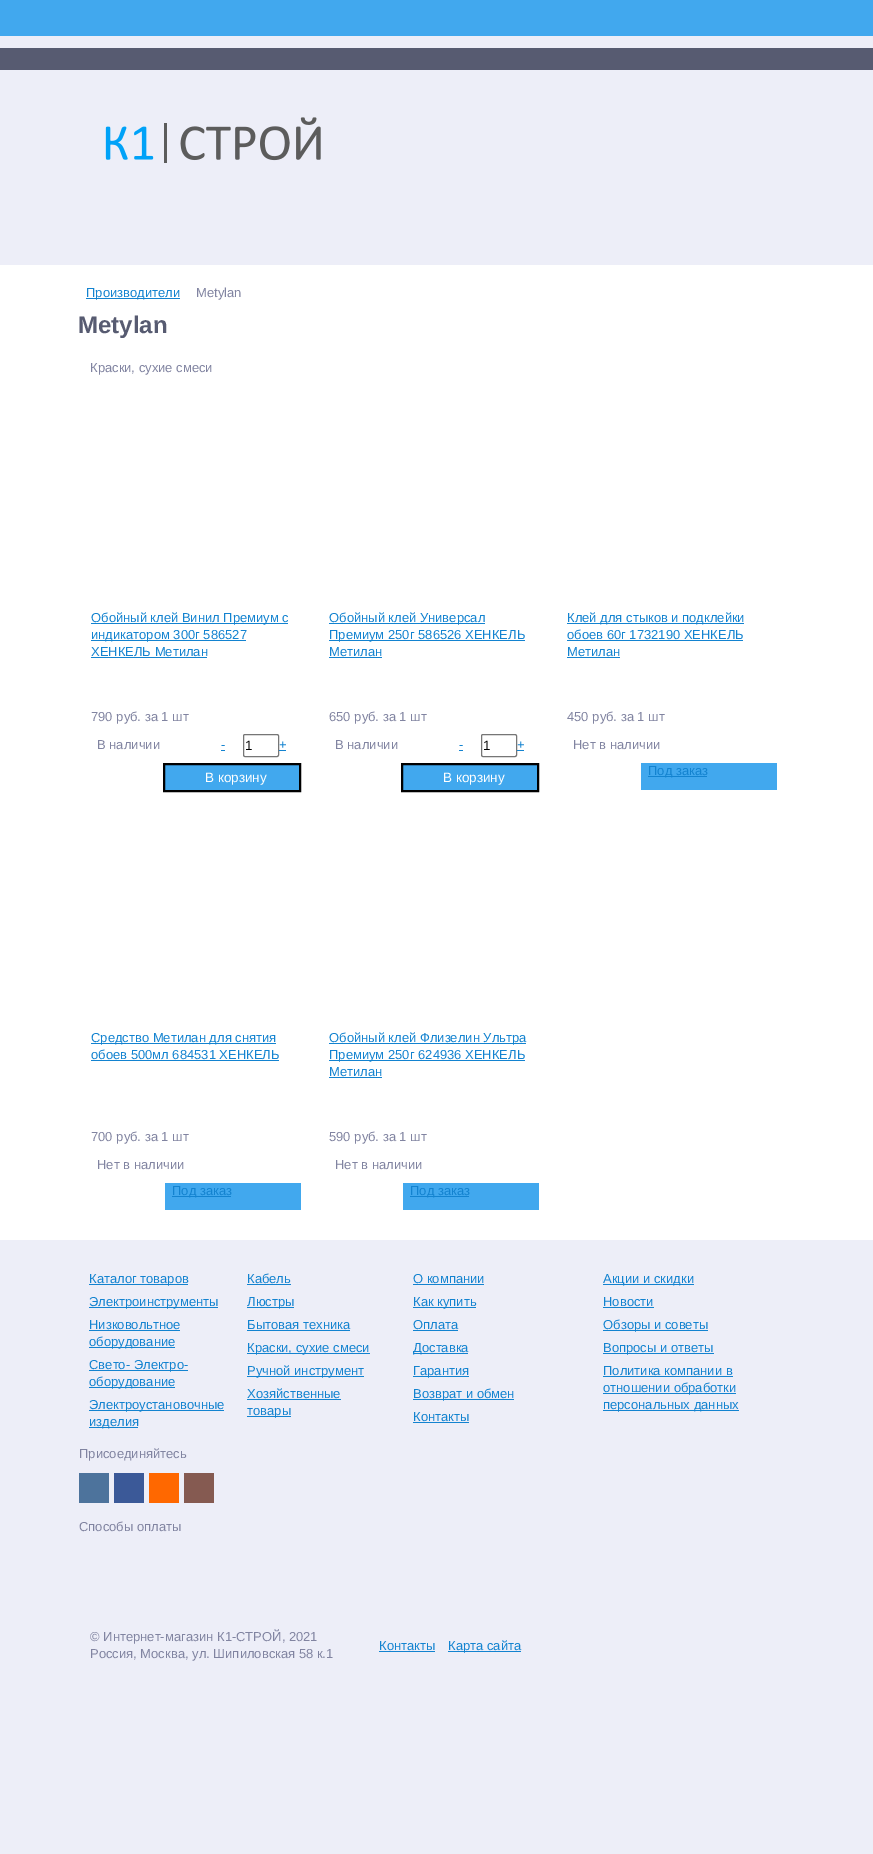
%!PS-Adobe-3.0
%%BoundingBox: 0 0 873 1854
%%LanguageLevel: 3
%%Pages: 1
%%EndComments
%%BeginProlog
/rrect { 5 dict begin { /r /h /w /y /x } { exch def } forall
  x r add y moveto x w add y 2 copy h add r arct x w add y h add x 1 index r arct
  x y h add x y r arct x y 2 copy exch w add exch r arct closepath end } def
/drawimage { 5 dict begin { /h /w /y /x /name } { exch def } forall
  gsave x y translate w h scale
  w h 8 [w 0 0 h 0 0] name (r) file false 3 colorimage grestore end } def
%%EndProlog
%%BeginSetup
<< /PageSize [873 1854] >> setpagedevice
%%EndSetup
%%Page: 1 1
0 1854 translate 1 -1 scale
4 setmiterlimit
0.929 0.933 0.973 setrgbcolor
0 0 873 1854 rectfill
0.341 0.357 0.443 setrgbcolor
0 48 873 22 rectfill
(images/1.raw) 105 117 216 46 drawimage
1 setgray
0 265 873 975 rectfill
0.075 0.514 0.816 setrgbcolor
86 298 94 1 rectfill
91 623 197 1 rectfill
91 640 155 1 rectfill
91 657 116 1 rectfill
221 750 4 1 rectfill
0.463 setgray
243.5 734.5 35 22 1.5 rrect stroke
0.075 0.514 0.816 setrgbcolor
279 750 7 1 rectfill
0.255 0.659 0.933 setrgbcolor
newpath 164 764 moveto 300 764 lineto 300 791 lineto 164 791 lineto closepath gsave fill grestore
0 setgray
2 setlinewidth
stroke
0.075 0.514 0.816 setrgbcolor
329 623 156 1 rectfill
329 640 196 1 rectfill
329 657 53 1 rectfill
459 750 4 1 rectfill
0.463 setgray
1 setlinewidth
481.5 734.5 35 22 1.5 rrect stroke
0.075 0.514 0.816 setrgbcolor
517 750 7 1 rectfill
0.255 0.659 0.933 setrgbcolor
newpath 402 764 moveto 538 764 lineto 538 791 lineto 402 791 lineto closepath gsave fill grestore
0 setgray
2 setlinewidth
stroke
0.075 0.514 0.816 setrgbcolor
567 623 177 1 rectfill
567 640 176 1 rectfill
567 657 53 1 rectfill
0.255 0.659 0.933 setrgbcolor
641 763 136 27 rectfill
0.075 0.514 0.816 setrgbcolor
648 776 59 1 rectfill
91 1043 185 1 rectfill
91 1060 188 1 rectfill
0.255 0.659 0.933 setrgbcolor
165 1183 136 27 rectfill
0.075 0.514 0.816 setrgbcolor
172 1196 59 1 rectfill
329 1043 197 1 rectfill
329 1060 196 1 rectfill
329 1077 53 1 rectfill
0.255 0.659 0.933 setrgbcolor
403 1183 136 27 rectfill
0.075 0.514 0.816 setrgbcolor
410 1196 59 1 rectfill
0.255 0.659 0.933 setrgbcolor
0 0 873 36 rectfill
0.075 0.514 0.816 setrgbcolor
89 1284 99 1 rectfill
247 1284 44 1 rectfill
89 1307 129 1 rectfill
247 1307 47 1 rectfill
89 1330 91 1 rectfill
89 1347 86 1 rectfill
247 1330 103 1 rectfill
247 1353 123 1 rectfill
89 1370 99 1 rectfill
89 1387 86 1 rectfill
247 1376 117 1 rectfill
89 1410 135 1 rectfill
89 1427 49 1 rectfill
247 1399 94 1 rectfill
247 1416 44 1 rectfill
413 1284 71 1 rectfill
413 1307 63 1 rectfill
413 1330 45 1 rectfill
413 1353 55 1 rectfill
413 1376 56 1 rectfill
413 1399 101 1 rectfill
413 1422 56 1 rectfill
603 1284 91 1 rectfill
603 1307 51 1 rectfill
603 1330 105 1 rectfill
603 1353 111 1 rectfill
603 1376 130 1 rectfill
603 1393 133 1 rectfill
603 1410 136 1 rectfill
0.302 0.451 0.612 setrgbcolor
79 1473 30 30 rectfill
0.231 0.349 0.596 setrgbcolor
114 1473 30 30 rectfill
1 0.408 0 setrgbcolor
149 1473 30 30 rectfill
0.522 0.353 0.318 setrgbcolor
184 1473 30 30 rectfill
0.075 0.514 0.816 setrgbcolor
379 1651 56 1 rectfill
448 1651 73 1 rectfill
/LiberationSans-Regular [13 0 0 -13 0 0] selectfont
86 297 moveto (Производители) show
0.506 0.518 0.631 setrgbcolor
196 297 moveto (Metylan) show
/LiberationSans-Bold [24 0 0 -24 0 0] selectfont
0.341 0.357 0.443 setrgbcolor
78 333 moveto (Metylan) show
/LiberationSans-Regular [13 0 0 -13 0 0] selectfont
0.506 0.518 0.631 setrgbcolor
90 372 moveto (Краски, сухие смеси) show
0.075 0.514 0.816 setrgbcolor
91 622 moveto (Обойный клей Винил Премиум с) show
91 639 moveto (индикатором 300г 586527) show
91 656 moveto (ХЕНКЕЛЬ Meтилан) show
0.506 0.518 0.631 setrgbcolor
91 721 moveto (790 руб. за 1 шт) show
97 749 moveto (В наличии) show
0.075 0.514 0.816 setrgbcolor
221 749 moveto (-) show
/LiberationSans-Regular [13.5 0 0 -13.5 0 0] selectfont
0 setgray
245 750 moveto (1) show
/LiberationSans-Regular [13 0 0 -13 0 0] selectfont
0.075 0.514 0.816 setrgbcolor
279 749 moveto (+) show
/LiberationSans-Regular [13.5 0 0 -13.5 0 0] selectfont
1 setgray
205 782 moveto (В корзину) show
/LiberationSans-Regular [13 0 0 -13 0 0] selectfont
0.075 0.514 0.816 setrgbcolor
329 622 moveto (Обойный клей Универсал) show
329 639 moveto (Премиум 250г 586526 ХЕНКЕЛЬ) show
329 656 moveto (Метилан) show
0.506 0.518 0.631 setrgbcolor
329 721 moveto (650 руб. за 1 шт) show
335 749 moveto (В наличии) show
0.075 0.514 0.816 setrgbcolor
459 749 moveto (-) show
/LiberationSans-Regular [13.5 0 0 -13.5 0 0] selectfont
0 setgray
483 750 moveto (1) show
/LiberationSans-Regular [13 0 0 -13 0 0] selectfont
0.075 0.514 0.816 setrgbcolor
517 749 moveto (+) show
/LiberationSans-Regular [13.5 0 0 -13.5 0 0] selectfont
1 setgray
443 782 moveto (В корзину) show
/LiberationSans-Regular [13 0 0 -13 0 0] selectfont
0.075 0.514 0.816 setrgbcolor
567 622 moveto (Клей для стыков и подклейки) show
567 639 moveto (обоев 60г 1732190 ХЕНКЕЛЬ) show
567 656 moveto (Meтилан) show
0.506 0.518 0.631 setrgbcolor
567 721 moveto (450 руб. за 1 шт) show
573 749 moveto (Нет в наличии) show
0.075 0.514 0.816 setrgbcolor
648 775 moveto (Под заказ) show
91 1042 moveto (Средство Mетилан для снятия) show
91 1059 moveto (обоев 500мл 684531 ХЕНКЕЛЬ) show
0.506 0.518 0.631 setrgbcolor
91 1141 moveto (700 руб. за 1 шт) show
97 1169 moveto (Нет в наличии) show
0.075 0.514 0.816 setrgbcolor
172 1195 moveto (Под заказ) show
329 1042 moveto (Обойный клей Флизелин Ультра) show
329 1059 moveto (Премиум 250г 624936 ХЕНКЕЛЬ) show
329 1076 moveto (Метилан) show
0.506 0.518 0.631 setrgbcolor
329 1141 moveto (590 руб. за 1 шт) show
335 1169 moveto (Нет в наличии) show
0.075 0.514 0.816 setrgbcolor
410 1195 moveto (Под заказ) show
89 1283 moveto (Каталог товаров) show
247 1283 moveto (Кабель) show
89 1306 moveto (Электроинструменты) show
247 1306 moveto (Люстры) show
89 1329 moveto (Низковольтное) show
89 1346 moveto (оборудование) show
247 1329 moveto (Бытовая техника) show
247 1352 moveto (Краски, сухие смеси) show
89 1369 moveto (Свето- Электро-) show
89 1386 moveto (оборудование) show
247 1375 moveto (Ручной инструмент) show
89 1409 moveto (Электроустановочные) show
89 1426 moveto (изделия) show
247 1398 moveto (Хозяйственные) show
247 1415 moveto (товары) show
413 1283 moveto (О компании) show
413 1306 moveto (Как купить) show
413 1329 moveto (Оплата) show
413 1352 moveto (Доставка) show
413 1375 moveto (Гарантия) show
413 1398 moveto (Возврат и обмен) show
413 1421 moveto (Контакты) show
603 1283 moveto (Акции и скидки) show
603 1306 moveto (Новости) show
603 1329 moveto (Обзоры и советы) show
603 1352 moveto (Вопросы и ответы) show
603 1375 moveto (Политика компании в) show
603 1392 moveto (отношении обработки) show
603 1409 moveto (персональных данных) show
0.506 0.518 0.631 setrgbcolor
79 1458 moveto (Присоединяйтесь) show
79 1531 moveto (Способы оплаты) show
90 1641 moveto (© Интернет-магазин К1-СТРОЙ, 2021) show
90 1658 moveto (Россия, Москва, ул. Шипиловская 58 к.1) show
0.075 0.514 0.816 setrgbcolor
379 1650 moveto (Контакты) show
448 1650 moveto (Карта сайта) show
showpage
%%EOF
